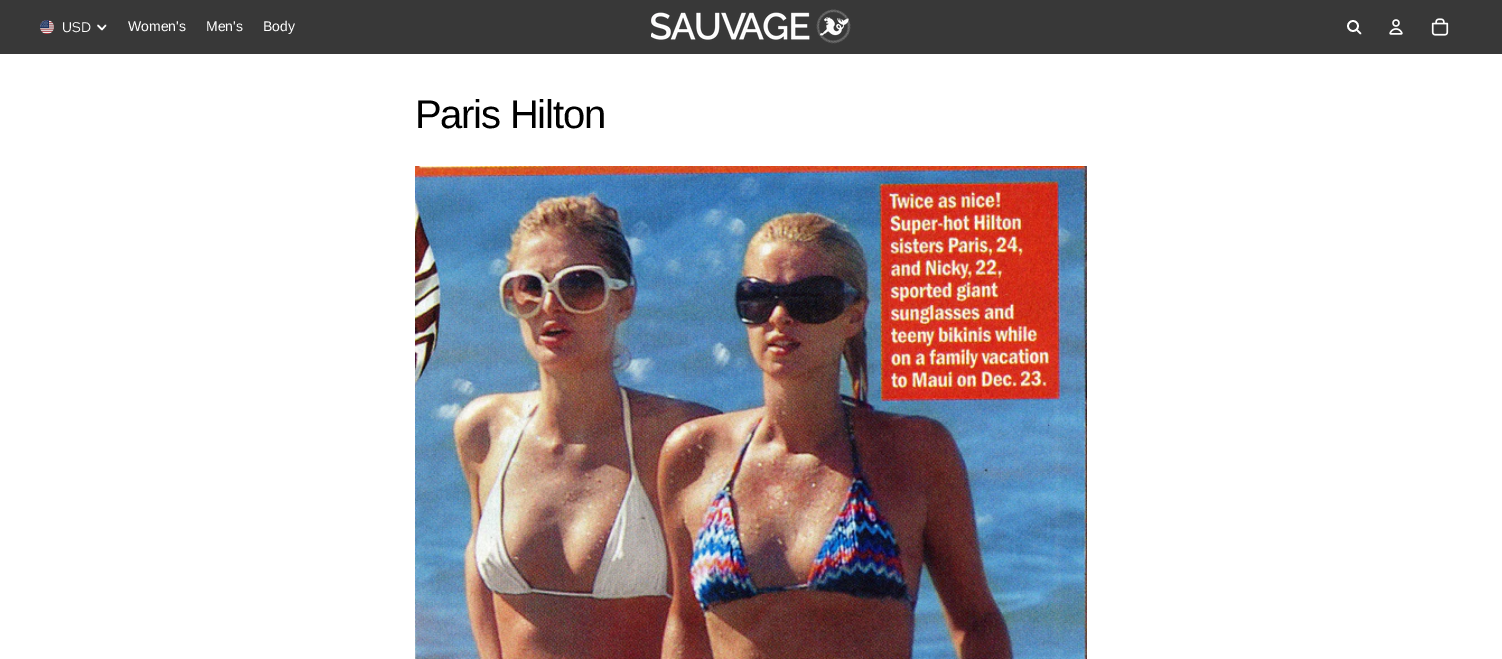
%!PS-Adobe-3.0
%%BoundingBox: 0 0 1502 659
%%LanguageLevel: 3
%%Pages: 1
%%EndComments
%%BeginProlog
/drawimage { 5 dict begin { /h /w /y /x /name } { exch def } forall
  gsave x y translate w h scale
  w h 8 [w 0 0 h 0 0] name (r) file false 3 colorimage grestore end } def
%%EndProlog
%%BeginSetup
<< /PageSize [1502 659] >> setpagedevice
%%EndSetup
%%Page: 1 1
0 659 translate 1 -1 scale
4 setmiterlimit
1 setgray
0 0 1502 659 rectfill
0.22 setgray
0 0 1502 54 rectfill
(images/1.raw) 40 20 14 14 drawimage
1 setgray
1.5 setlinewidth
1 setlinecap
1 setlinejoin
newpath 105.5 25.5 moveto 102 29.5 lineto 98 25.5 lineto stroke
(images/2.raw) 651 9 200 35 drawimage
1.7 setlinewidth
0 setlinecap
0 setlinejoin
newpath 1353 26 5 0 360 arc closepath stroke
1 setlinecap
1 setlinejoin
newpath 1357 30 moveto 1360.5 33.5 lineto stroke
(images/3.raw) 1389 19 14 16 drawimage
(images/4.raw) 1431 18 18 18 drawimage
(images/5.raw) 415 166 672 493 drawimage
/RedHatText-Regular [14 0 0 -14 0 0] selectfont
62 32 moveto (USD) show
/Arimo-Regular [14 0 0 -14 0 0] selectfont
128 31 moveto (Women's) show
206 31 moveto (Men's) show
263 31 moveto (Body) show
/Arimo-Regular [40 0 0 -40 0 0] selectfont
0 setgray
415 128 moveto -1.25 0 (Paris Hilton) ashow
showpage
%%EOF
